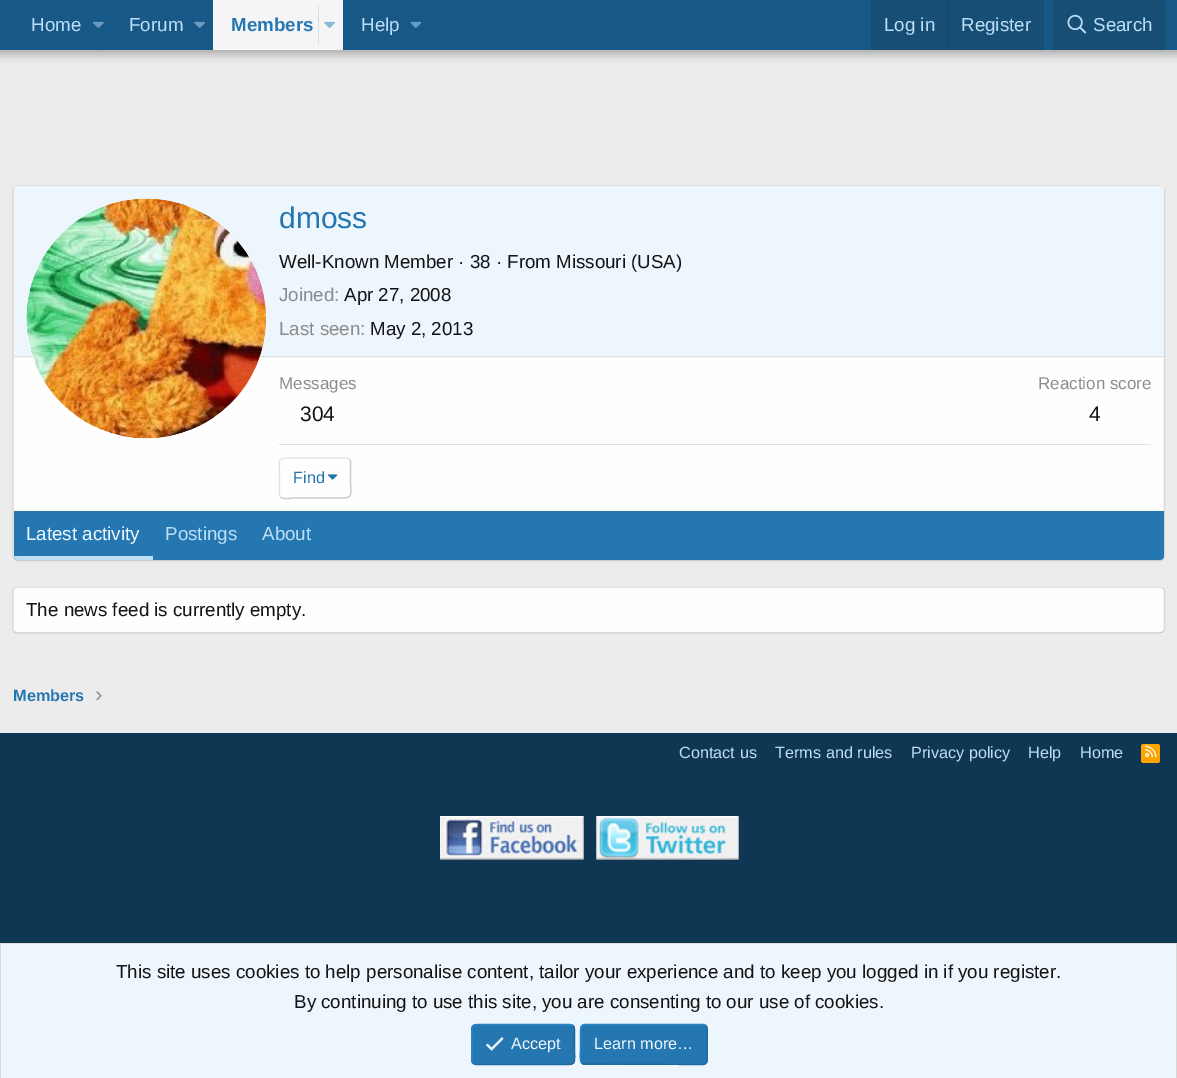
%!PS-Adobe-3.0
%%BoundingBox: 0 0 1177 1078
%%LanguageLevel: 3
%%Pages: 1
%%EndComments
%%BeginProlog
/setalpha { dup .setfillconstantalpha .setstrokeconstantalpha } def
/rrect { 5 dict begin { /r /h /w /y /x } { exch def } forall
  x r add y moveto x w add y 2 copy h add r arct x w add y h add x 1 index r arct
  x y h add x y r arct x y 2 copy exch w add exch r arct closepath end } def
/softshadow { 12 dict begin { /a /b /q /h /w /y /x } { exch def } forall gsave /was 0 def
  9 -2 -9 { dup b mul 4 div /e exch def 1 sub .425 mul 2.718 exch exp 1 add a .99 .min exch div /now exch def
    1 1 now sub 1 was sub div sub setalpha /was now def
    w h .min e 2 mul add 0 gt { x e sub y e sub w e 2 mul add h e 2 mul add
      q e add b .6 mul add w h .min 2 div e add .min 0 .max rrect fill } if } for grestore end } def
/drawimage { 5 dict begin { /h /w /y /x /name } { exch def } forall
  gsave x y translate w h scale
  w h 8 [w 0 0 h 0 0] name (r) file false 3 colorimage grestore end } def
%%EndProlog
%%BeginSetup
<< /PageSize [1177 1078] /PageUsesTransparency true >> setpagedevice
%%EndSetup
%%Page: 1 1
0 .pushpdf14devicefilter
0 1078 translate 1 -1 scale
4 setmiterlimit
0.925 setgray
0 0 1177 1078 rectfill
(images/6.raw) 96 50 2 1 drawimage
0 setgray
-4 -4 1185 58 0 5 0.3 softshadow
0.094 0.345 0.525 setrgbcolor
0 0 1177 50 rectfill
(images/1.raw) 93 21 11 7 drawimage
(images/2.raw) 194 21 11 7 drawimage
0.961 setgray
213 0 130 50 rectfill
0.82 0.875 0.914 setrgbcolor
318 6 1 38 rectfill
(images/3.raw) 324 21 11 7 drawimage
(images/4.raw) 410 21 12 7 drawimage
0.09 0.306 0.459 setrgbcolor
871 0 173 50 rectfill
0.09 0.271 0.4 setrgbcolor
948 0 1 50 rectfill
0.09 0.306 0.459 setrgbcolor
newpath 1058 0 moveto 1160 0 lineto 1163 0 1165 2 1165 5 curveto 1165 50 lineto 1053 50 lineto 1053 5 lineto 1053 2 1055 0 1058 0 curveto closepath fill
(images/5.raw) 1067 14 20 20 drawimage
0.996 setgray
13 185 1152 376 5 rrect fill
0.875 setgray
1.2 setlinewidth
newpath 14.5 187 moveto 17.5 185.5 lineto 1160 185.5 lineto 1163 187 lineto stroke
0.847 setgray
newpath 1163 187 moveto 1164.5 190 lineto 1164.5 556 lineto 1163 559.5 lineto stroke
0.796 setgray
newpath 1163 559.5 moveto 1160 560.5 lineto 17.5 560.5 lineto 14.5 559.5 lineto stroke
0.847 setgray
newpath 14.5 559.5 moveto 13 556 lineto 13 190 lineto 14.5 187 lineto stroke
0.929 0.965 0.992 setrgbcolor
newpath 18 186 moveto 1160 186 lineto 1162 186 1164 188 1164 190 curveto 1164 358 lineto 14 358 lineto 14 190 lineto 14 188 16 186 18 186 curveto closepath fill
0.875 setgray
14 356 1150 1 rectfill
0.996 setgray
newpath 146 319 120 0 360 arc closepath fill
(images/7.raw) 26 198 240 241 drawimage
0.875 setgray
279 444 872 1 rectfill
0.796 setgray
newpath 349.5 459.5 moveto 351.5 461.5 350.5 465.5 350.5 467.5 curveto 350.5 478 lineto 350.5 498.5 354.5 498 336 498 curveto 294 498 lineto 293 498 283.5 500 280.5 497 curveto stroke
0.898 setgray
newpath 280.5 497 moveto 278.5 495 279.5 491 279.5 488.5 curveto 279.5 478 lineto 279.5 458 275.5 458 294 458 curveto 336 458 lineto 337 458 346.5 456.5 349.5 459.5 curveto stroke
(images/8.raw) 327 474 11 6 drawimage
0.145 0.467 0.694 setrgbcolor
newpath 14 511 moveto 1164 511 lineto 1164 556 lineto 1164 558 1162 560 1160 560 curveto 18 560 lineto 16 560 14 558 14 556 curveto closepath fill
0.737 0.871 0.961 setrgbcolor
newpath 14 556 moveto 153 556 lineto 153 560 lineto 18 560 lineto 16 560 14 558 14 556 curveto closepath fill
0.996 setgray
13 586 1152 48 5 rrect fill
0.875 setgray
newpath 14.5 588 moveto 17.5 587 lineto 1160 587 lineto 1163 588 lineto stroke
0.847 setgray
newpath 1163 588 moveto 1164 589 1164.5 590 1164.5 591 curveto 1164.5 629 lineto 1164.5 630 1164 631 1163 632 curveto stroke
0.796 setgray
newpath 1163 632 moveto 1160 633 lineto 17.5 633 lineto 14.5 632 lineto stroke
0.847 setgray
newpath 14.5 632 moveto 13.5 631 13 630 13 629 curveto 13 591 lineto 13 590 13.5 589 14.5 588 curveto stroke
(images/9.raw) 96 691 6 10 drawimage
0.059 0.212 0.322 setrgbcolor
0 733 1177 210 rectfill
1 0.647 0 setrgbcolor
1141 744 19 19 2.5 rrect fill
(images/10.raw) 1145 745 12 13 drawimage
(images/11.raw) 440 816 144 44 drawimage
(images/12.raw) 596 816 143 44 drawimage
0.929 0.965 0.992 setrgbcolor
1 944 1175 134 rectfill
0.875 setgray
0 943 1177 1 rectfill
0.847 setgray
1176 943 1 135 rectfill
0 943 1 135 rectfill
0.145 0.467 0.694 setrgbcolor
471 1024 104 41 5 rrect fill
0.129 0.412 0.612 setrgbcolor
newpath 573 1025.5 moveto 575 1027.5 574.5 1031.5 574.5 1034 curveto 574.5 1044.5 lineto 574.5 1067.5 578 1064.5 554.5 1064.5 curveto 476 1064.5 lineto 473 1063 lineto stroke
0.161 0.522 0.776 setrgbcolor
newpath 473 1063 moveto 471 1061 472 1057 472 1055 curveto 472 1044.5 lineto 472 1021.5 468 1024.5 492 1024.5 curveto 570 1024.5 lineto 573 1025.5 lineto stroke
(images/13.raw) 486 1037 18 14 drawimage
0.145 0.467 0.694 setrgbcolor
580 1024 128 41 5 rrect fill
0.129 0.412 0.612 setrgbcolor
newpath 705.5 1025.5 moveto 708.5 1028.5 707 1036 707 1039 curveto 707 1055 lineto 707 1058 707.5 1064.5 702.5 1064.5 curveto 583.5 1064 lineto 582 1063 lineto stroke
0.161 0.522 0.776 setrgbcolor
newpath 582 1063 moveto 579 1060.5 580.5 1052.5 580.5 1049.5 curveto 580.5 1034 lineto 580.5 1030.5 580 1024.5 585 1024.5 curveto 704 1024.5 lineto 705.5 1025.5 lineto stroke
/LiberationSans-Regular [18.75 0 0 -18.75 0 0] selectfont
0.737 0.871 0.961 setrgbcolor
31 31 moveto (Home) show
129 31 moveto (Forum) show
/LiberationSans-Bold [18.75 0 0 -18.75 0 0] selectfont
0.145 0.467 0.694 setrgbcolor
231 31 moveto (Members) show
/LiberationSans-Regular [18.75 0 0 -18.75 0 0] selectfont
0.737 0.871 0.961 setrgbcolor
361 31 moveto (Help) show
884 31 moveto (Log in) show
961 31 moveto (Register) show
1093 31 moveto (Search) show
/LiberationSans-Regular [30 0 0 -30 0 0] selectfont
0.145 0.467 0.694 setrgbcolor
279 228 moveto (dmoss) show
/LiberationSans-Regular [18.75 0 0 -18.75 0 0] selectfont
0.078 setgray
279 268 moveto (Well-Known Member · 38 · From Missouri \(USA\)) show
0.549 setgray
279 301 moveto (Joined:) show
0.078 setgray
344 301 moveto (Apr 27, 2008) show
0.549 setgray
279 335 moveto (Last seen:) show
0.078 setgray
370 335 moveto (May 2, 2013) show
/LiberationSans-Regular [17 0 0 -17 0 0] selectfont
0.549 setgray
279 389 moveto (Messages) show
/LiberationSans-Regular [21 0 0 -21 0 0] selectfont
0.078 setgray
300 421 moveto (304) show
/LiberationSans-Regular [17 0 0 -17 0 0] selectfont
0.549 setgray
1038 389 moveto (Reaction score) show
/LiberationSans-Regular [21 0 0 -21 0 0] selectfont
0.078 setgray
1089 421 moveto (4) show
/LiberationSans-Regular [16.25 0 0 -16.25 0 0] selectfont
0.145 0.467 0.694 setrgbcolor
293 483 moveto (Find) show
/LiberationSans-Regular [18.75 0 0 -18.75 0 0] selectfont
0.929 0.965 0.992 setrgbcolor
26 540 moveto (Latest activity) show
0.737 0.871 0.961 setrgbcolor
165 540 moveto (Postings) show
262 540 moveto (About) show
0.078 setgray
26 616 moveto (The news feed is currently empty.) show
/LiberationSans-Bold [16.25 0 0 -16.25 0 0] selectfont
0.145 0.467 0.694 setrgbcolor
13 701 moveto (Members) show
/LiberationSans-Regular [16.25 0 0 -16.25 0 0] selectfont
0.737 0.871 0.961 setrgbcolor
679 758 moveto (Contact us) show
775 758 moveto (Terms and rules) show
911 758 moveto (Privacy policy) show
1028 758 moveto (Help) show
1080 758 moveto (Home) show
/LiberationSans-Regular [18.75 0 0 -18.75 0 0] selectfont
0.078 setgray
116 978 moveto (This site uses cookies to help personalise content, tailor your experience and to keep you logged in if you register.) show
294 1008 moveto (By continuing to use this site, you are consenting to our use of cookies.) show
/LiberationSans-Regular [16.25 0 0 -16.25 0 0] selectfont
0.929 0.965 0.992 setrgbcolor
511 1049 moveto (Accept) show
594 1049 moveto (Learn more…) show
.poppdf14devicefilter showpage
%%EOF
